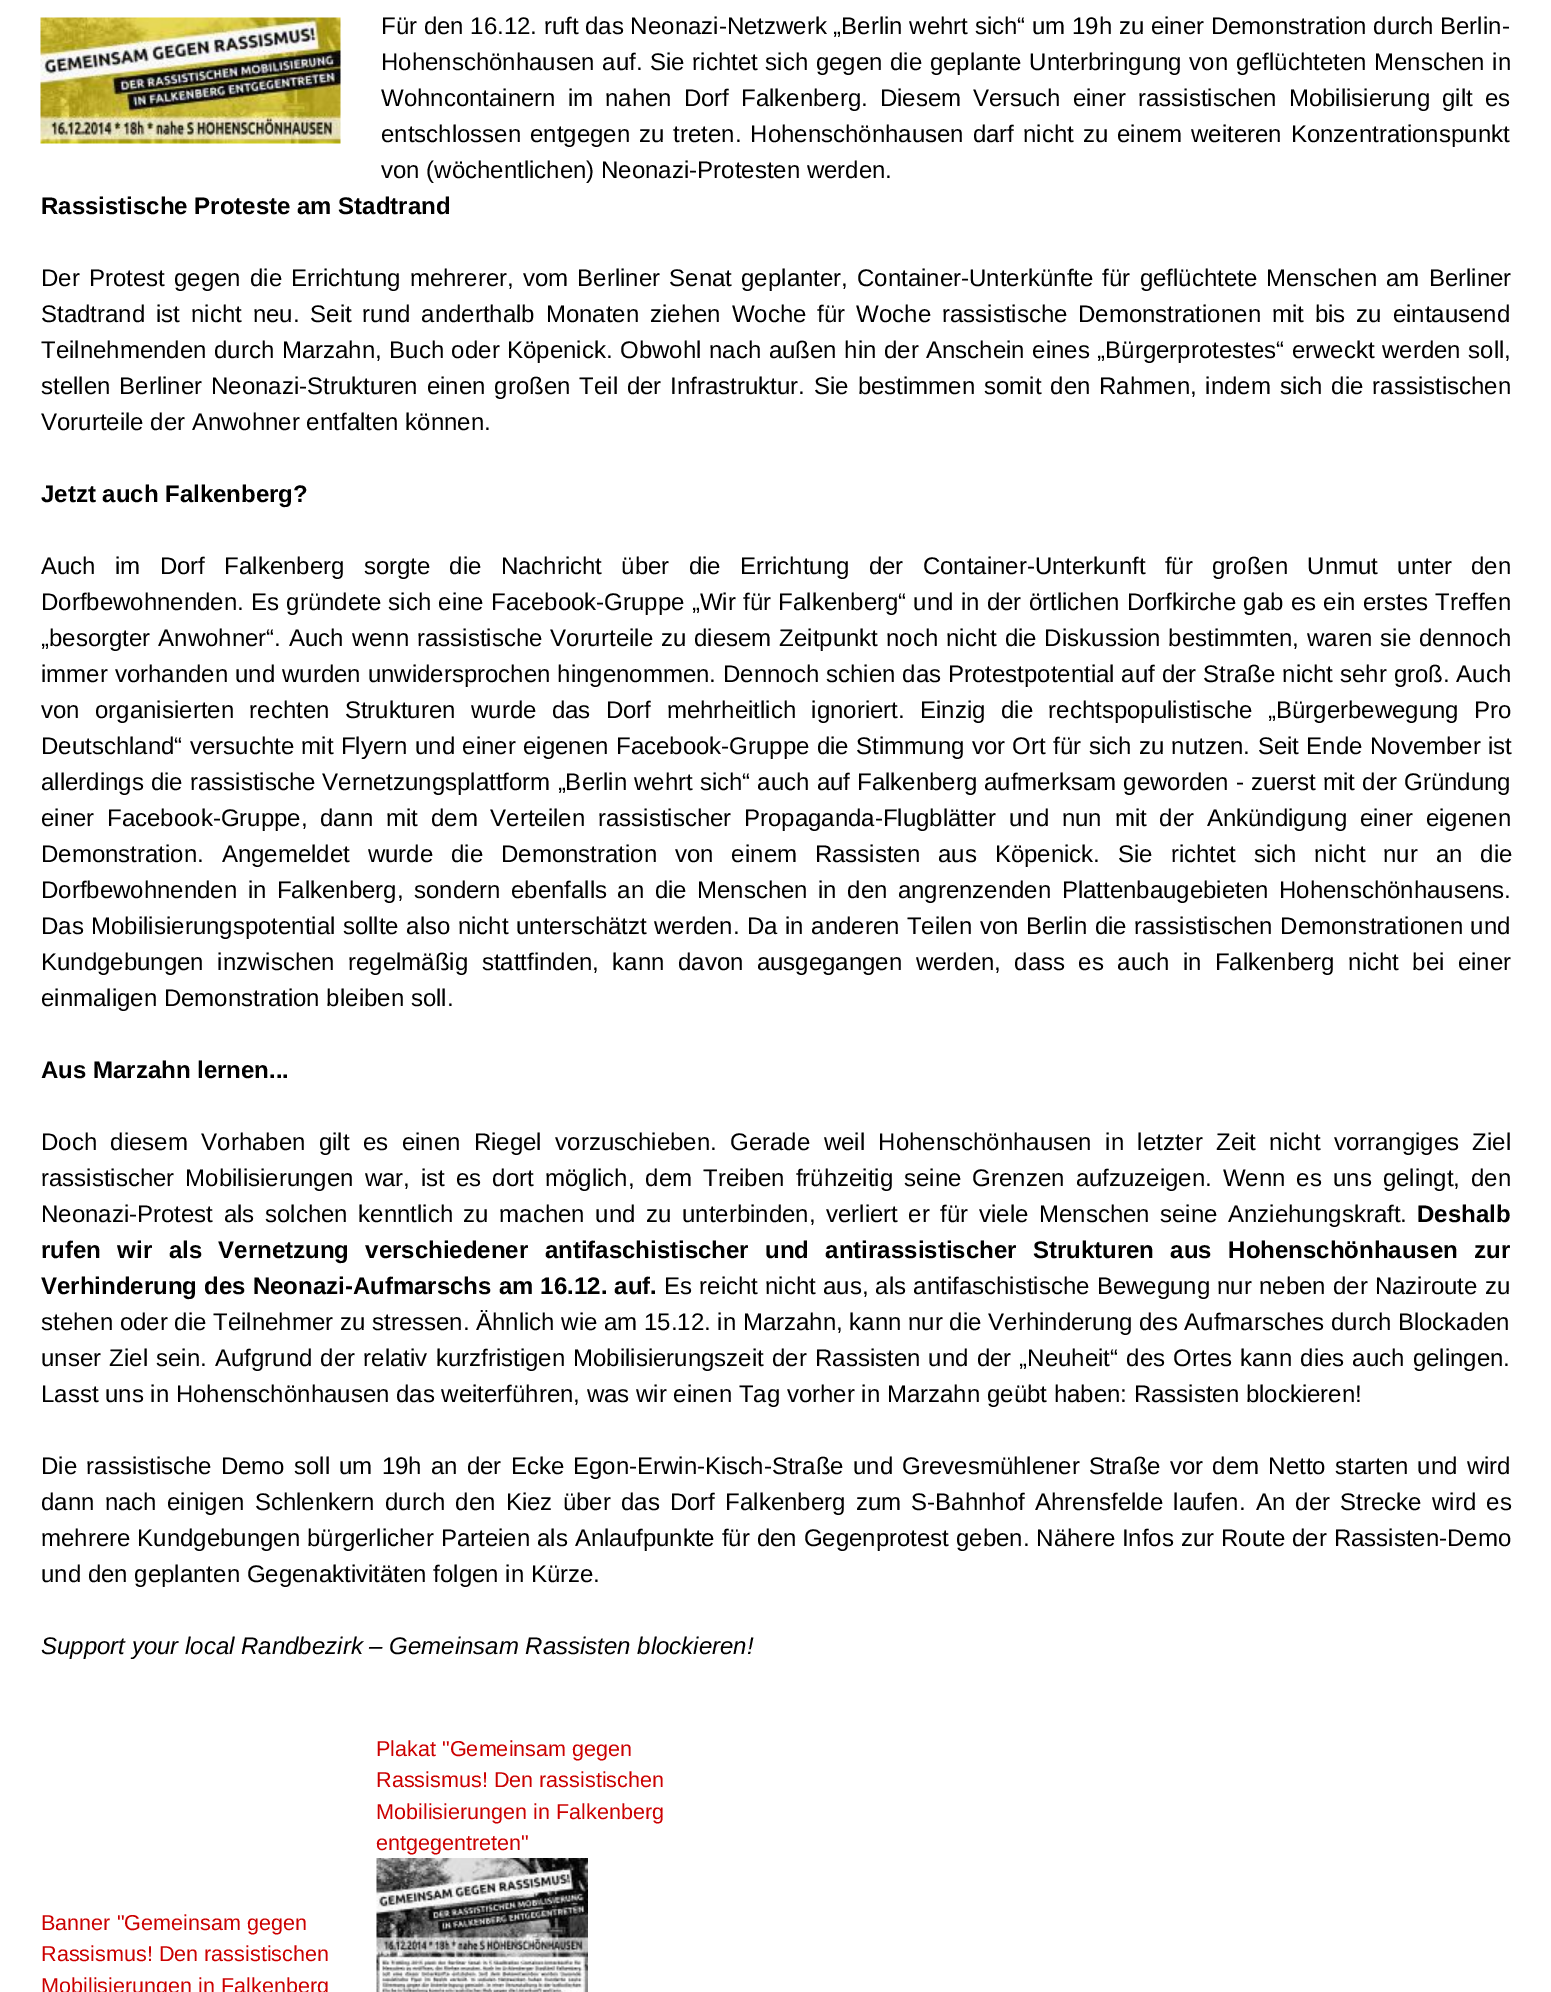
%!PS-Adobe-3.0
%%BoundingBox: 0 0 1551 1992
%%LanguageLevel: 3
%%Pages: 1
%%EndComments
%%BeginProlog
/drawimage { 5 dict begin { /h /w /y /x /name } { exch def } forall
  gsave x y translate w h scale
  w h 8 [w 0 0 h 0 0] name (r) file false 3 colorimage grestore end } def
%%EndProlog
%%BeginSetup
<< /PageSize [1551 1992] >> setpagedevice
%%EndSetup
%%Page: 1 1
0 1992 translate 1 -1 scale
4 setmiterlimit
1 setgray
0 0 1551 1992 rectfill
(images/1.raw) 376 1858 212 134 drawimage
(images/2.raw) 40 17 301 127 drawimage
/LiberationSans-Regular [24 0 0 -24 0 0] selectfont
0 setgray
381 34 moveto (Für den 16.12. ruft das Neonazi-Netzwerk „Berlin wehrt sich“ um 19h zu einer Demonstration durch Berlin-) show
381 70 moveto 1 0 32 (Hohenschönhausen auf. Sie richtet sich gegen die geplante Unterbringung von geflüchteten Menschen in) widthshow
381 106 moveto 5.25 0 32 (Wohncontainern im nahen Dorf Falkenberg. Diesem Versuch einer rassistischen Mobilisierung gilt es) widthshow
381 142 moveto 2.25 0 32 (entschlossen entgegen zu treten. Hohenschönhausen darf nicht zu einem weiteren Konzentrationspunkt) widthshow
381 178 moveto (von \(wöchentlichen\) Neonazi-Protesten werden.) show
/LiberationSans-Bold [24 0 0 -24 0 0] selectfont
41 214 moveto (Rassistische Proteste am Stadtrand) show
/LiberationSans-Regular [24 0 0 -24 0 0] selectfont
41 286 moveto 2.5 0 32 (Der Protest gegen die Errichtung mehrerer, vom Berliner Senat geplanter, Container-Unterkünfte für geflüchtete Menschen am Berliner) widthshow
41 322 moveto 4.25 0 32 (Stadtrand ist nicht neu. Seit rund anderthalb Monaten ziehen Woche für Woche rassistische Demonstrationen mit bis zu eintausend) widthshow
41 358 moveto 0.9 0 32 (Teilnehmenden durch Marzahn, Buch oder Köpenick. Obwohl nach außen hin der Anschein eines „Bürgerprotestes“ erweckt werden soll,) widthshow
41 394 moveto 2.25 0 32 (stellen Berliner Neonazi-Strukturen einen großen Teil der Infrastruktur. Sie bestimmen somit den Rahmen, indem sich die rassistischen) widthshow
41 430 moveto (Vorurteile der Anwohner entfalten können.) show
/LiberationSans-Bold [24 0 0 -24 0 0] selectfont
41 502 moveto (Jetzt auch Falkenberg?) show
/LiberationSans-Regular [24 0 0 -24 0 0] selectfont
41 574 moveto 12.6 0 32 (Auch im Dorf Falkenberg sorgte die Nachricht über die Errichtung der Container-Unterkunft für großen Unmut unter den) widthshow
41 610 moveto 0.6 0 32 (Dorfbewohnenden. Es gründete sich eine Facebook-Gruppe „Wir für Falkenberg“ und in der örtlichen Dorfkirche gab es ein erstes Treffen) widthshow
41 646 moveto 1.25 0 32 („besorgter Anwohner“. Auch wenn rassistische Vorurteile zu diesem Zeitpunkt noch nicht die Diskussion bestimmten, waren sie dennoch) widthshow
41 682 moveto 0.25 0 32 (immer vorhanden und wurden unwidersprochen hingenommen. Dennoch schien das Protestpotential auf der Straße nicht sehr groß. Auch) widthshow
41 718 moveto 8.75 0 32 (von organisierten rechten Strukturen wurde das Dorf mehrheitlich ignoriert. Einzig die rechtspopulistische „Bürgerbewegung Pro) widthshow
41 754 moveto 0.75 0 32 (Deutschland“ versuchte mit Flyern und einer eigenen Facebook-Gruppe die Stimmung vor Ort für sich zu nutzen. Seit Ende November ist) widthshow
41 790 moveto 0.4 0 32 (allerdings die rassistische Vernetzungsplattform „Berlin wehrt sich“ auch auf Falkenberg aufmerksam geworden - zuerst mit der Gründung) widthshow
41 826 moveto 6.1 0 32 (einer Facebook-Gruppe, dann mit dem Verteilen rassistischer Propaganda-Flugblätter und nun mit der Ankündigung einer eigenen) widthshow
41 862 moveto 11.25 0 32 (Demonstration. Angemeldet wurde die Demonstration von einem Rassisten aus Köpenick. Sie richtet sich nicht nur an die) widthshow
41 898 moveto 3.75 0 32 (Dorfbewohnenden in Falkenberg, sondern ebenfalls an die Menschen in den angrenzenden Plattenbaugebieten Hohenschönhausens.) widthshow
41 934 moveto 0.8 0 32 (Das Mobilisierungspotential sollte also nicht unterschätzt werden. Da in anderen Teilen von Berlin die rassistischen Demonstrationen und) widthshow
41 970 moveto 6.75 0 32 (Kundgebungen inzwischen regelmäßig stattfinden, kann davon ausgegangen werden, dass es auch in Falkenberg nicht bei einer) widthshow
41 1006 moveto (einmaligen Demonstration bleiben soll.) show
/LiberationSans-Bold [24 0 0 -24 0 0] selectfont
41 1078 moveto (Aus Marzahn lernen...) show
/LiberationSans-Regular [24 0 0 -24 0 0] selectfont
41 1150 moveto 6.75 0 32 (Doch diesem Vorhaben gilt es einen Riegel vorzuschieben. Gerade weil Hohenschönhausen in letzter Zeit nicht vorrangiges Ziel) widthshow
41 1186 moveto 4.4 0 32 (rassistischer Mobilisierungen war, ist es dort möglich, dem Treiben frühzeitig seine Grenzen aufzuzeigen. Wenn es uns gelingt, den) widthshow
41 1222 moveto 3.9 0 32 (Neonazi-Protest als solchen kenntlich zu machen und zu unterbinden, verliert er für viele Menschen seine Anziehungskraft.) widthshow
/LiberationSans-Bold [24 0 0 -24 0 0] selectfont
1417 1222 moveto (Deshalb) show
41 1258 moveto 9.75 0 32 (rufen wir als Vernetzung verschiedener antifaschistischer und antirassistischer Strukturen aus Hohenschönhausen zur) widthshow
41 1294 moveto 0.5 0 32 (Verhinderung des Neonazi-Aufmarschs am 16.12. auf.) widthshow
/LiberationSans-Regular [24 0 0 -24 0 0] selectfont
664 1294 moveto 0.5 0 32 (Es reicht nicht aus, als antifaschistische Bewegung nur neben der Naziroute zu) widthshow
41 1330 moveto (stehen oder die Teilnehmer zu stressen. Ähnlich wie am 15.12. in Marzahn, kann nur die Verhinderung des Aufmarsches durch Blockaden) show
41 1366 moveto 1.5 0 32 (unser Ziel sein. Aufgrund der relativ kurzfristigen Mobilisierungszeit der Rassisten und der „Neuheit“ des Ortes kann dies auch gelingen.) widthshow
41 1402 moveto (Lasst uns in Hohenschönhausen das weiterführen, was wir einen Tag vorher in Marzahn geübt haben: Rassisten blockieren!) show
41 1474 moveto 2.5 0 32 (Die rassistische Demo soll um 19h an der Ecke Egon-Erwin-Kisch-Straße und Grevesmühlener Straße vor dem Netto starten und wird) widthshow
41 1510 moveto 3.6 0 32 (dann nach einigen Schlenkern durch den Kiez über das Dorf Falkenberg zum S-Bahnhof Ahrensfelde laufen. An der Strecke wird es) widthshow
41 1546 moveto 0.25 0 32 (mehrere Kundgebungen bürgerlicher Parteien als Anlaufpunkte für den Gegenprotest geben. Nähere Infos zur Route der Rassisten-Demo) widthshow
41 1582 moveto (und den geplanten Gegenaktivitäten folgen in Kürze.) show
/LiberationSans-Italic [24 0 0 -24 0 0] selectfont
41 1654 moveto (Support your local Randbezirk – Gemeinsam Rassisten blockieren!) show
/LiberationSans-Regular [21.6 0 0 -21.6 0 0] selectfont
0.8 0 0 setrgbcolor
376 1756 moveto (Plakat "Gemeinsam gegen) show
376 1787 moveto (Rassismus! Den rassistischen) show
376 1819 moveto (Mobilisierungen in Falkenberg) show
376 1850 moveto (entgegentreten") show
41 1930 moveto (Banner "Gemeinsam gegen) show
41 1961 moveto (Rassismus! Den rassistischen) show
41 1993 moveto (Mobilisierungen in Falkenberg) show
showpage
%%EOF
